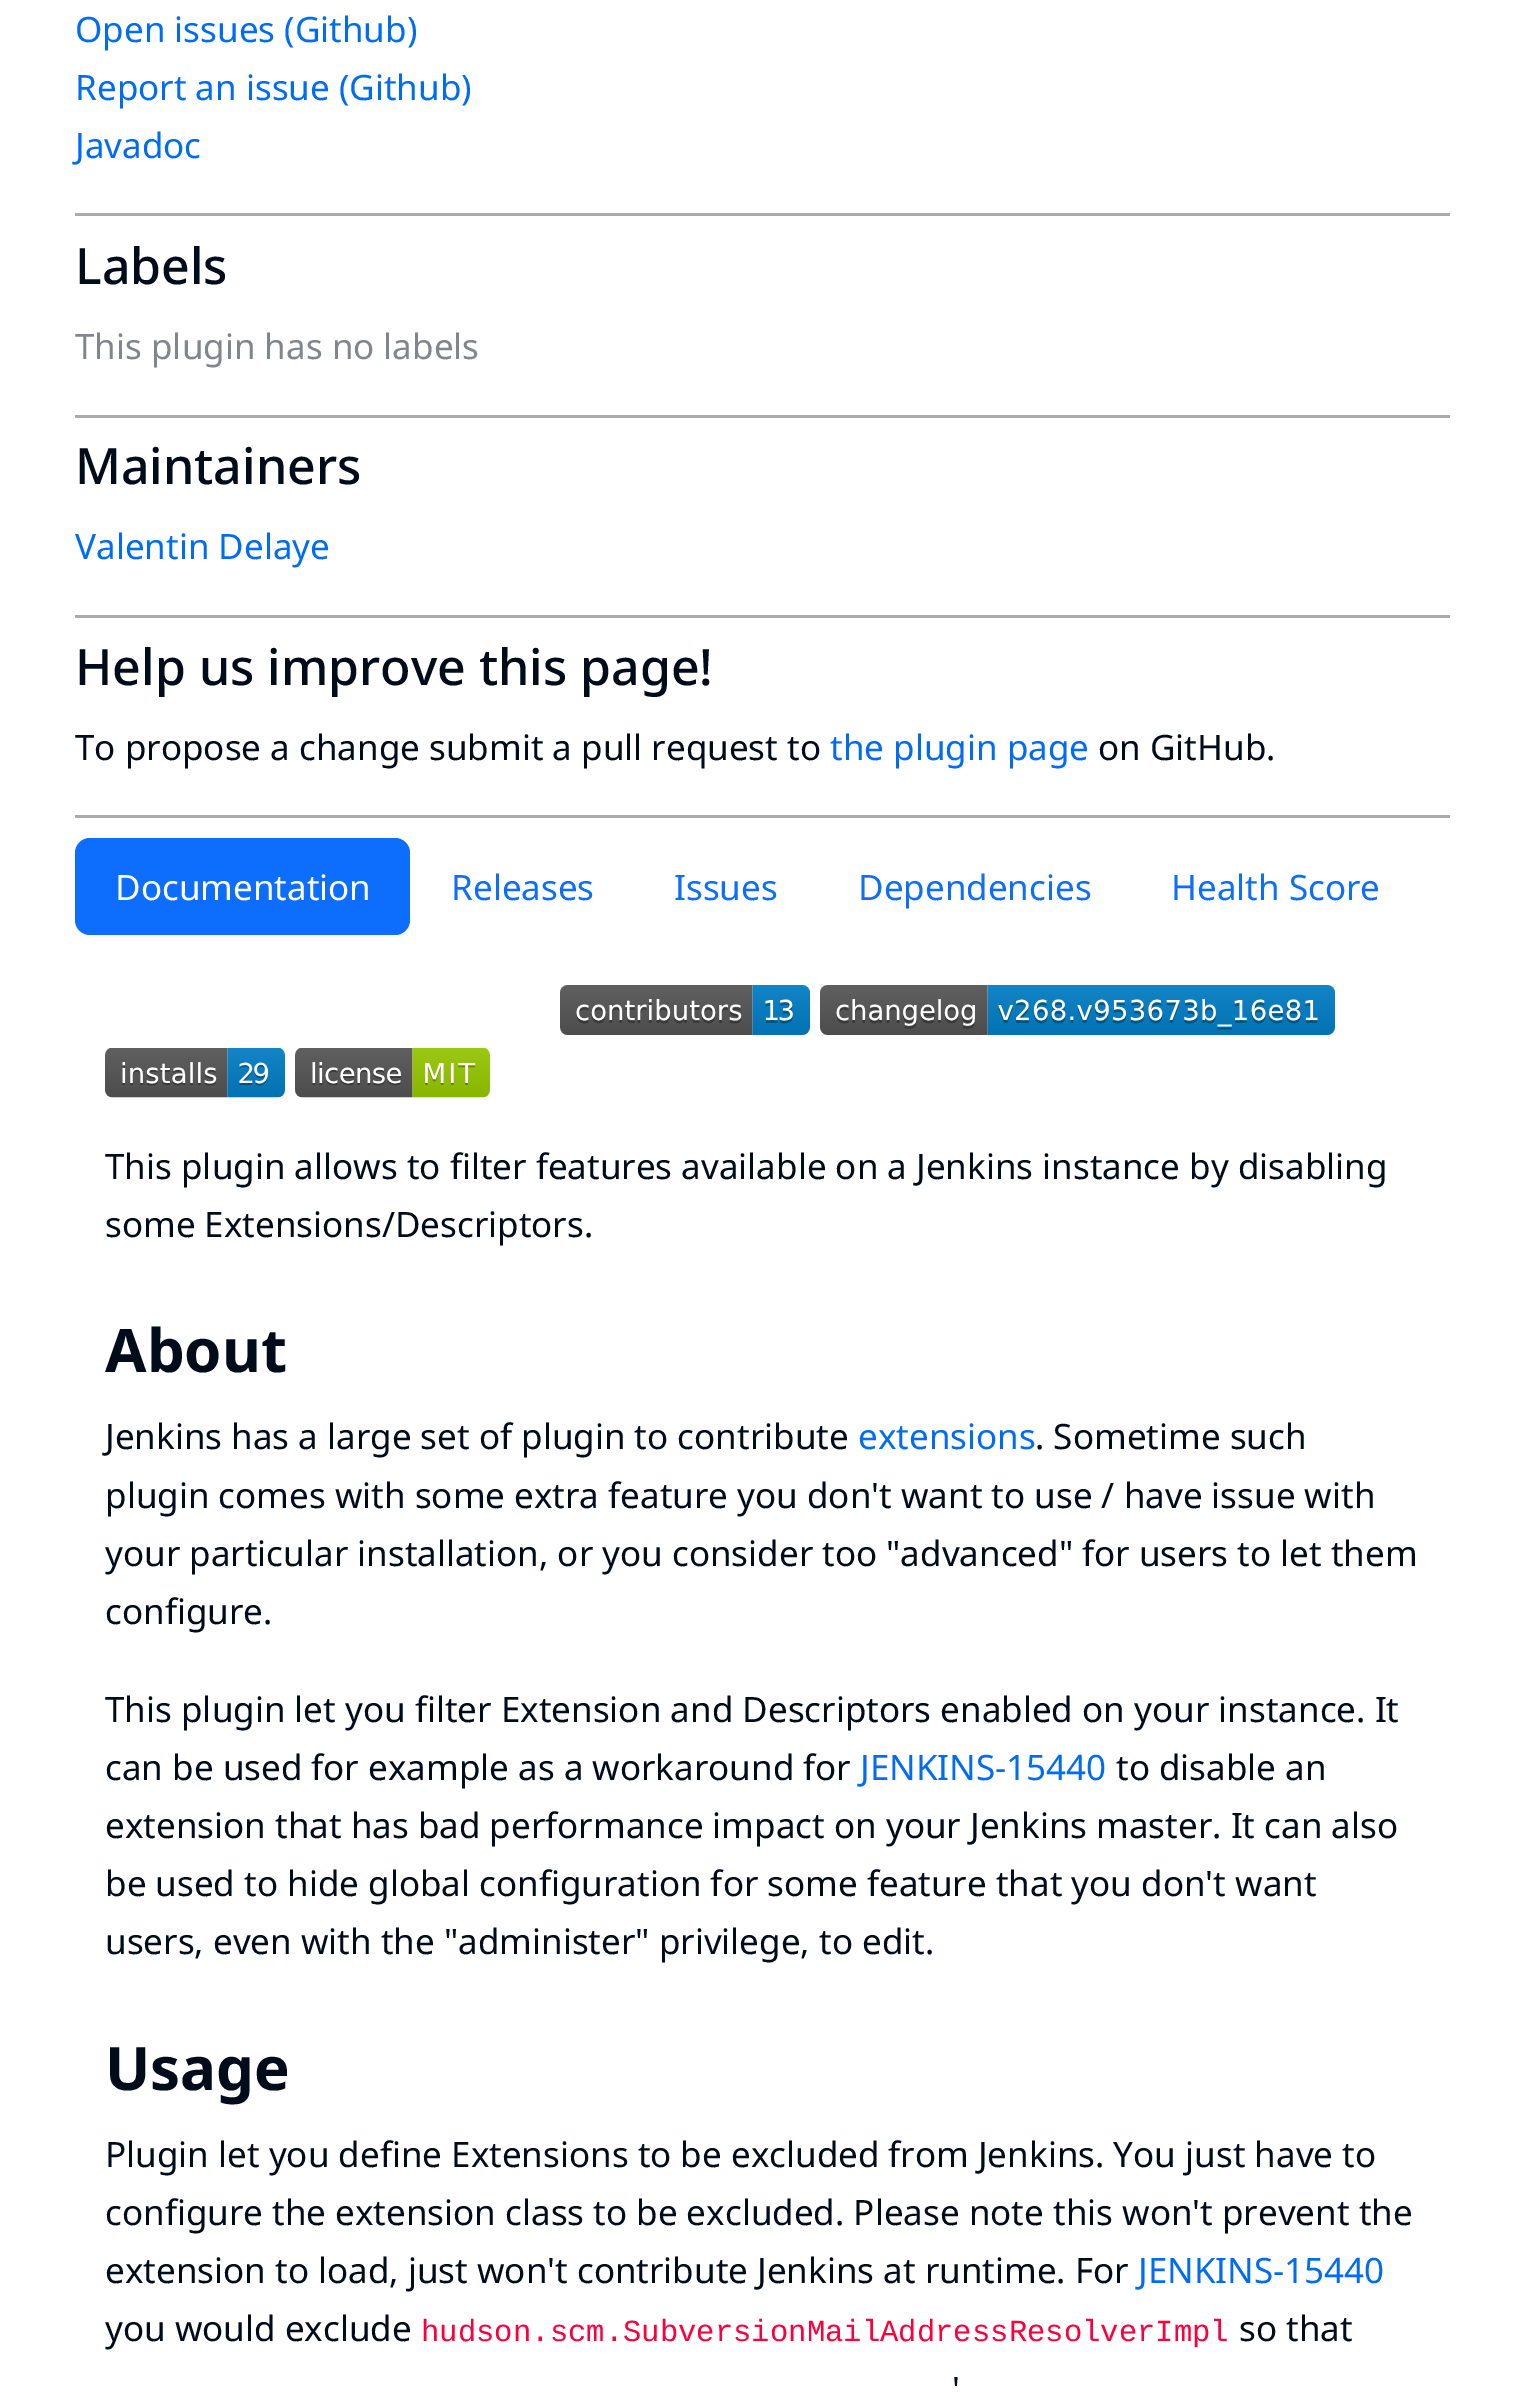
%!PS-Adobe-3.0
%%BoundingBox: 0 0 1524 2393
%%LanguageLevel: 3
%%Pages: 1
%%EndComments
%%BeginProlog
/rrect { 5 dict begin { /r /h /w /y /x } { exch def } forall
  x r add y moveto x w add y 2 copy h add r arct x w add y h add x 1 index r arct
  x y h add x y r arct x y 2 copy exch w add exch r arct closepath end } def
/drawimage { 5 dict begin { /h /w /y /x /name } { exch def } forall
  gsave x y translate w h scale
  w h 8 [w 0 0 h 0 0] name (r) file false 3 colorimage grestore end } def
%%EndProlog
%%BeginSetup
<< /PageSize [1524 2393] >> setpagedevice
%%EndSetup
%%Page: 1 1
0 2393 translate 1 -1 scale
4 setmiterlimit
1 setgray
0 0 1524 2393 rectfill
0.667 setgray
75 213 1375 3 rectfill
75 415 1375 3 rectfill
75 615 1375 3 rectfill
75 815 1375 3 rectfill
0.051 0.431 0.992 setrgbcolor
75 838 335 97 15 rrect fill
(images/1.raw) 560 985 250 50 drawimage
(images/2.raw) 820 985 515 50 drawimage
(images/3.raw) 105 1048 180 50 drawimage
(images/4.raw) 295 1048 195 50 drawimage
/NotoSans-Regular [35 0 0 -35 0 0] selectfont
0 0.424 0.965 setrgbcolor
75 42 moveto (Open issues \(Github\)) show
75 100 moveto (Report an issue \(Github\)) show
75 158 moveto (Javadoc) show
/NotoSans-Medium [50 0 0 -50 0 0] selectfont
0 0.047 0.102 setrgbcolor
75 284 moveto (Labels) show
/NotoSans-Regular [35 0 0 -35 0 0] selectfont
0.502 0.525 0.553 setrgbcolor
75 359 moveto (This plugin has no labels) show
/NotoSans-Medium [50 0 0 -50 0 0] selectfont
0 0.047 0.102 setrgbcolor
75 484 moveto (Maintainers) show
/NotoSans-Regular [35 0 0 -35 0 0] selectfont
0 0.424 0.965 setrgbcolor
75 559 moveto (Valentin Delaye) show
/NotoSans-Medium [50 0 0 -50 0 0] selectfont
0 0.047 0.102 setrgbcolor
75 685 moveto (Help us improve this page!) show
/NotoSans-Regular [35 0 0 -35 0 0] selectfont
75 760 moveto (To propose a change submit a pull request to) show
0 0.424 0.965 setrgbcolor
830 760 moveto (the plugin page) show
0 0.047 0.102 setrgbcolor
1098 760 moveto (on GitHub.) show
1 setgray
115 900 moveto (Documentation) show
0.051 0.431 0.992 setrgbcolor
451 900 moveto (Releases) show
674 900 moveto (Issues) show
858 900 moveto (Dependencies) show
1171 900 moveto (Health Score) show
0 0.047 0.102 setrgbcolor
105 1179 moveto (This plugin allows to filter features available on a Jenkins instance by disabling) show
105 1237 moveto (some Extensions/Descriptors.) show
/NotoSans-Bold [60 0 0 -60 0 0] selectfont
105 1372 moveto (About) show
/NotoSans-Regular [35 0 0 -35 0 0] selectfont
105 1449 moveto (Jenkins has a large set of plugin to contribute) show
0 0.424 0.965 setrgbcolor
858 1449 moveto (extensions) show
0 0.047 0.102 setrgbcolor
1035 1449 moveto (. Sometime such) show
105 1508 moveto (plugin comes with some extra feature you don't want to use / have issue with) show
105 1566 moveto (your particular installation, or you consider too "advanced" for users to let them) show
105 1624 moveto (configure.) show
105 1722 moveto (This plugin let you filter Extension and Descriptors enabled on your instance. It) show
105 1780 moveto (can be used for example as a workaround for) show
0 0.424 0.965 setrgbcolor
860 1780 moveto (JENKINS-15440) show
0 0.047 0.102 setrgbcolor
1116 1780 moveto (to disable an) show
105 1838 moveto (extension that has bad performance impact on your Jenkins master. It can also) show
105 1896 moveto (be used to hide global configuration for some feature that you don't want) show
105 1954 moveto (users, even with the "administer" privilege, to edit.) show
/NotoSans-Bold [60 0 0 -60 0 0] selectfont
105 2090 moveto (Usage) show
/NotoSans-Regular [35 0 0 -35 0 0] selectfont
105 2167 moveto (Plugin let you define Extensions to be excluded from Jenkins. You just have to) show
105 2225 moveto (configure the extension class to be excluded. Please note this won't prevent the) show
105 2283 moveto (extension to load, just won't contribute Jenkins at runtime. For) show
0 0.424 0.965 setrgbcolor
1138 2283 moveto (JENKINS-15440) show
0 0.047 0.102 setrgbcolor
105 2341 moveto (you would exclude) show
/LiberationMono-Regular [30.6 0 0 -30.6 0 0] selectfont
0.992 0 0.235 setrgbcolor
421 2341 moveto (hudson.scm.SubversionMailAddressResolverImpl) show
/NotoSans-Regular [35 0 0 -35 0 0] selectfont
0 0.047 0.102 setrgbcolor
1239 2341 moveto (so that) show
952 2402 moveto (') show
showpage
%%EOF
